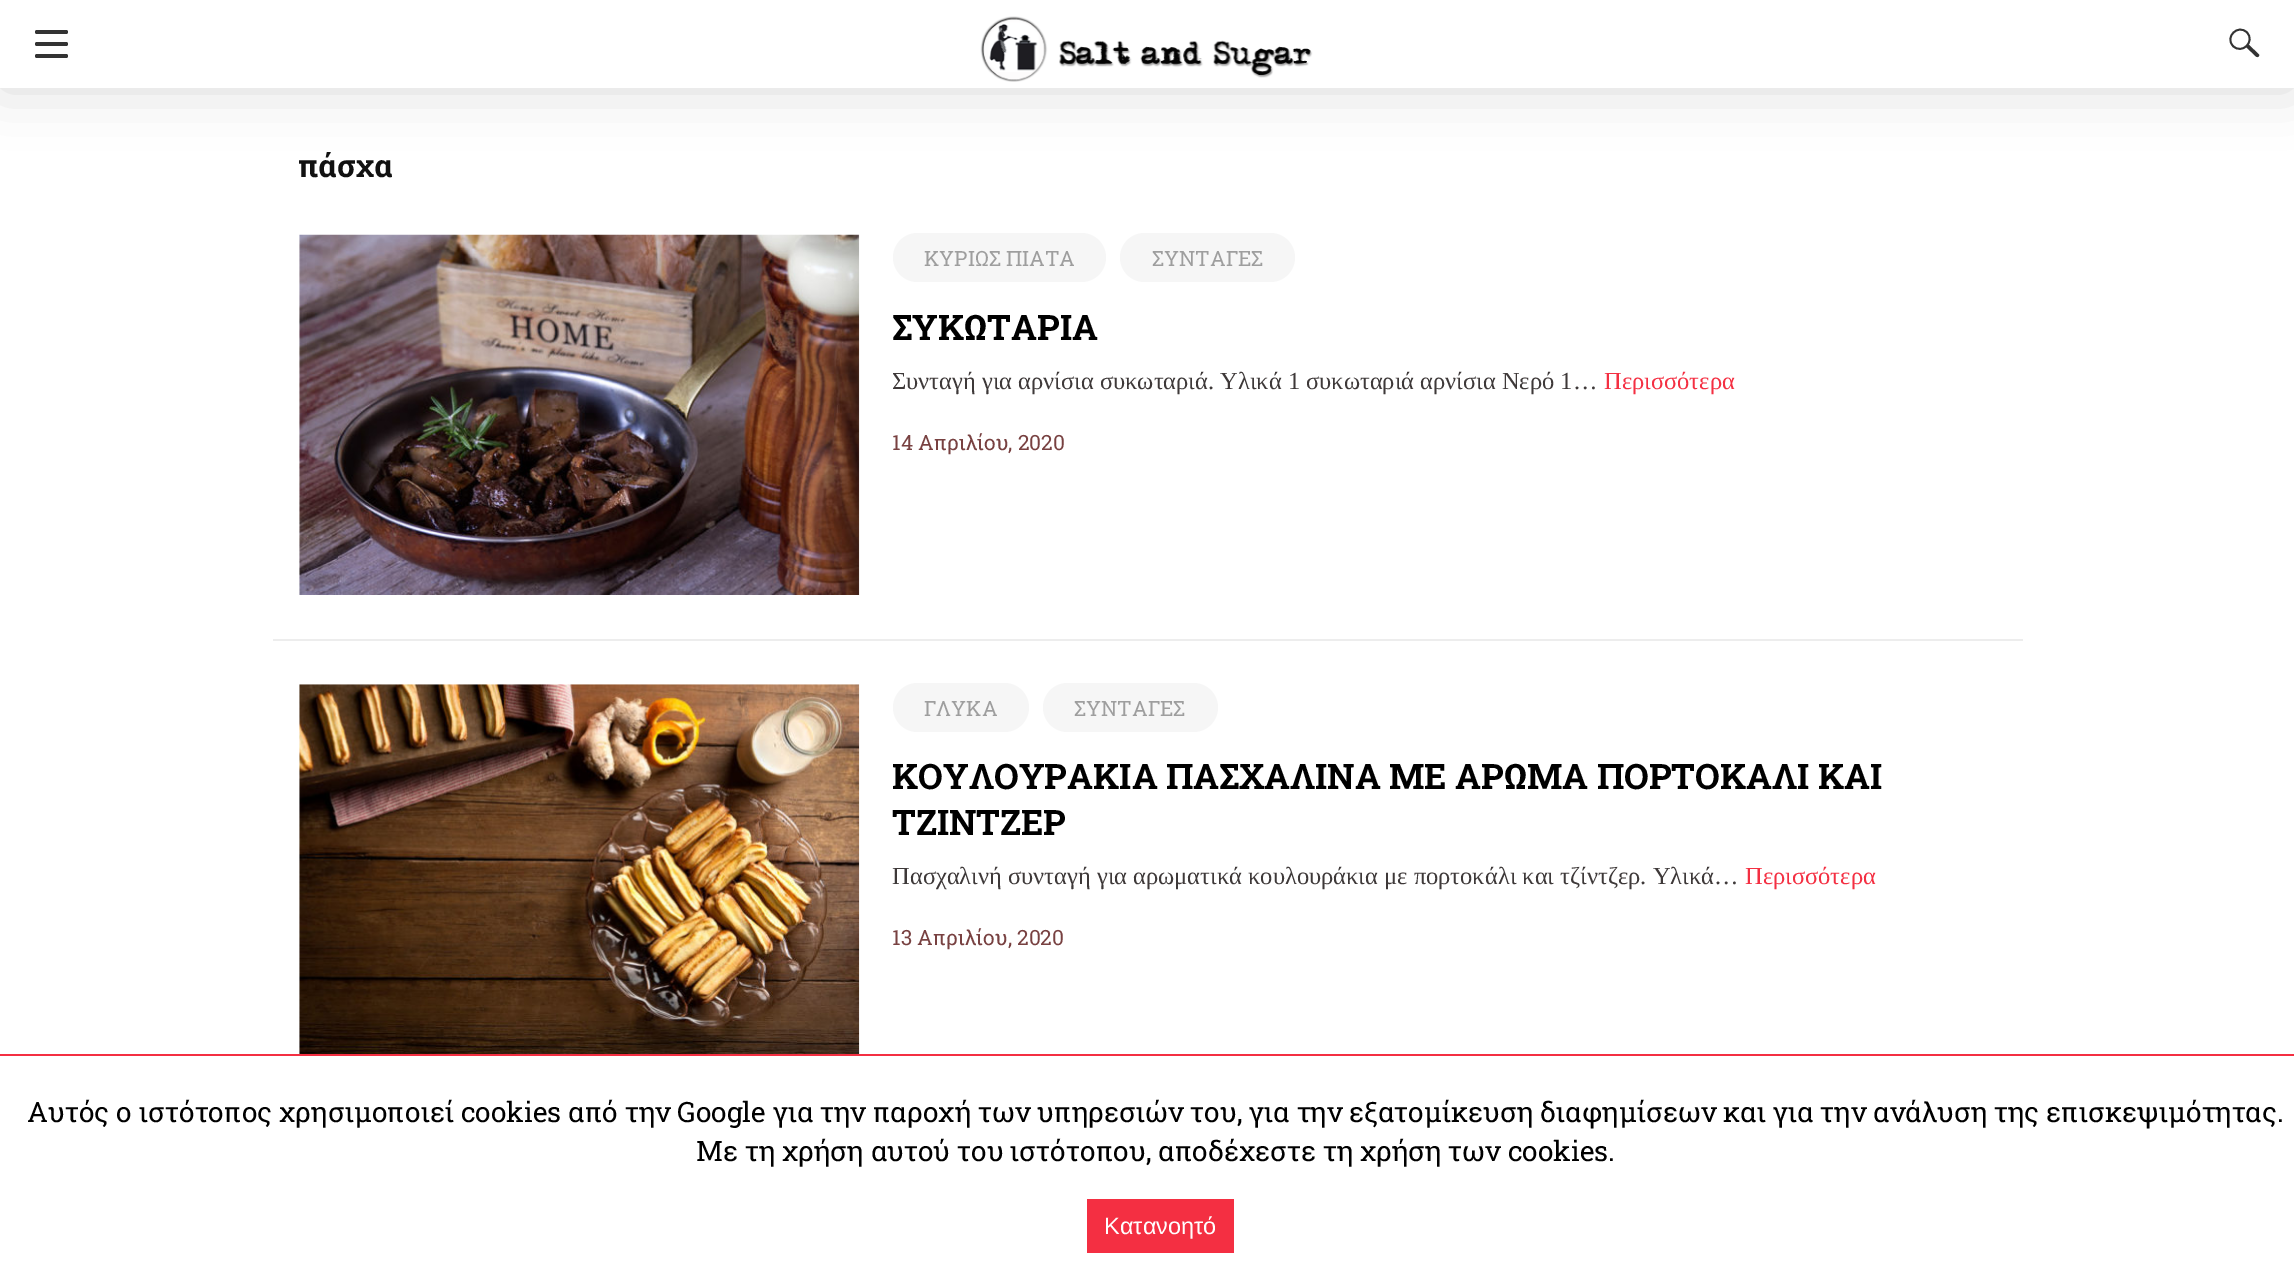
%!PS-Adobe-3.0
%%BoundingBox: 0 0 2294 1261
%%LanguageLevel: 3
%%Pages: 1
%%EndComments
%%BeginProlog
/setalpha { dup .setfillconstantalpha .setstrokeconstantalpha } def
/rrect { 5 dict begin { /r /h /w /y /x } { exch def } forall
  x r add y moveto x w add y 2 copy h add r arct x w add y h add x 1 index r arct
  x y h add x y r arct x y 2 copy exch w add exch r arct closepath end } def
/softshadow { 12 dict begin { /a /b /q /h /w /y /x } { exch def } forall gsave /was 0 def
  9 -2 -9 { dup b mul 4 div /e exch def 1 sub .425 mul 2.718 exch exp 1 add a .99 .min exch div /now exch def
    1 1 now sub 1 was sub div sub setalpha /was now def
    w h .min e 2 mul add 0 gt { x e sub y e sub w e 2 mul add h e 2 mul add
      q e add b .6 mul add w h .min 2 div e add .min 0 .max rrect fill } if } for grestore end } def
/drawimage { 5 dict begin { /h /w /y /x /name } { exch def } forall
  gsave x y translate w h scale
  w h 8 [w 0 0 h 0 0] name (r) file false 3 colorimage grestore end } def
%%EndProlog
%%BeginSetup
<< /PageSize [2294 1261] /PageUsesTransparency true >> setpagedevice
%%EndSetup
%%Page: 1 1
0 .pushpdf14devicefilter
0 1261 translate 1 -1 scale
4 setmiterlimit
1 setgray
0 0 2294 1261 rectfill
0 setgray
0 0 2294 88 0 28 0.15 softshadow
1 setgray
0 0 2294 88 rectfill
0.2 setgray
35 30 33 4 2 rrect fill
35 42 33 4 2 rrect fill
35 54 33 4 2 rrect fill
(images/1.raw) 980 16 333 66 drawimage
1.8 setlinewidth
newpath 2247 32.5 moveto 2255.5 41.5 2242 55 2233 46 curveto 2224.5 37 2238 23.5 2247 32.5 curveto closepath stroke
newpath 2246 47 moveto 2248.5 44.5 lineto 2259 54.5 lineto 2260 56 2257.5 58 2256 56.5 curveto closepath fill
0.929 setgray
273 639 1750 2 rectfill
(images/2.raw) 299 234 561 361 drawimage
0.965 setgray
893 233 213 49 24.5 rrect fill
1120 233 175 49 24.5 rrect fill
(images/3.raw) 299 684 561 370 drawimage
893 683 136 49 24.5 rrect fill
1043 683 175 49 24.5 rrect fill
0.957 0.184 0.259 setrgbcolor
0 1054 2294 2 rectfill
1087 1199 147 54 rectfill
/RobotoSlab-Bold [31.5 0 0 -31.5 0 0] selectfont
0.067 setgray
298 177 moveto (πάσχα) show
/RobotoSlab-Regular [21 0 0 -21 0 0] selectfont
0.62 setgray
924 266 moveto (ΚΥΡΙΩΣ ΠΙΑΤΑ) show
1152 266 moveto (ΣΥΝΤΑΓΕΣ) show
/RobotoSlab-Bold [35 0 0 -35 0 0] selectfont
0 setgray
892 340 moveto (ΣΥΚΩΤΑΡΙΑ) show
/LiberationSerif-Regular [24.5 0 0 -24.5 0 0] selectfont
0.243 0.224 0.224 setrgbcolor
892 389 moveto (Συνταγή για αρνίσια συκωταριά. Υλικά 1 συκωταριά αρνίσια Νερό 1…) show
0.957 0.184 0.259 setrgbcolor
1604 389 moveto (Περισσότερα) show
/RobotoSlab-Regular [21 0 0 -21 0 0] selectfont
0.471 0.255 0.255 setrgbcolor
892 450 moveto (14 Απριλίου, 2020) show
0.62 setgray
924 716 moveto (ΓΛΥΚΑ) show
1074 716 moveto (ΣΥΝΤΑΓΕΣ) show
/RobotoSlab-Bold [35 0 0 -35 0 0] selectfont
0 setgray
892 789 moveto (ΚΟΥΛΟΥΡΑΚΙΑ ΠΑΣΧΑΛΙΝΑ ΜΕ ΑΡΩΜΑ ΠΟΡΤΟΚΑΛΙ ΚΑΙ) show
892 835 moveto (ΤΖΙΝΤΖΕΡ) show
/LiberationSerif-Regular [24.5 0 0 -24.5 0 0] selectfont
0.243 0.224 0.224 setrgbcolor
892 884 moveto (Πασχαλινή συνταγή για αρωματικά κουλουράκια με πορτοκάλι και τζίντζερ. Υλικά…) show
0.957 0.184 0.259 setrgbcolor
1745 884 moveto (Περισσότερα) show
/RobotoSlab-Regular [21 0 0 -21 0 0] selectfont
0.471 0.255 0.255 setrgbcolor
892 945 moveto (13 Απριλίου, 2020) show
/RobotoSlab-Regular [28 0 0 -28 0 0] selectfont
0 setgray
27 1122 moveto (Αυτός ο ιστότοπος χρησιμοποιεί cookies από την Google για την παροχή των υπηρεσιών του, για την εξατομίκευση διαφημίσεων και για την ανάλυση της επισκεψιμότητας.) show
696 1161 moveto (Με τη χρήση αυτού του ιστότοπου, αποδέχεστε τη χρήση των cookies.) show
/LiberationSans-Regular [23.5 0 0 -23.5 0 0] selectfont
1 setgray
1104 1234 moveto (Κατανοητό) show
.poppdf14devicefilter showpage
%%EOF
